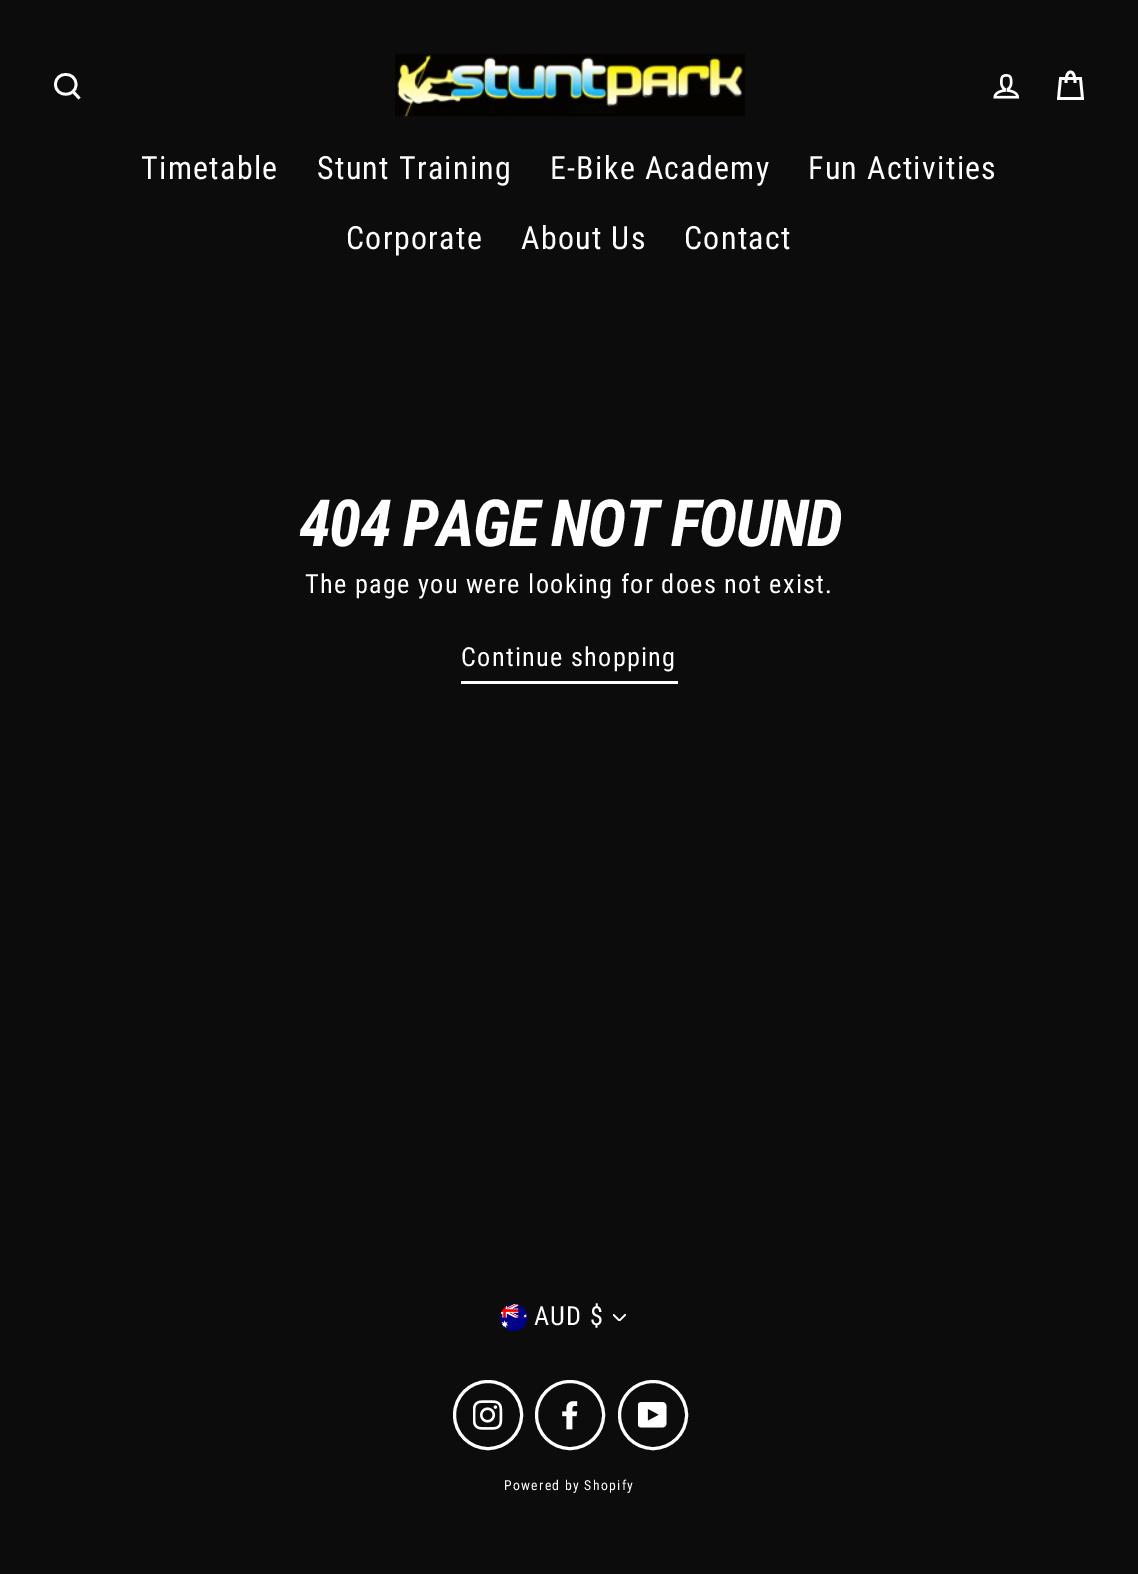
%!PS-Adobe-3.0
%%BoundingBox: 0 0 1138 1574
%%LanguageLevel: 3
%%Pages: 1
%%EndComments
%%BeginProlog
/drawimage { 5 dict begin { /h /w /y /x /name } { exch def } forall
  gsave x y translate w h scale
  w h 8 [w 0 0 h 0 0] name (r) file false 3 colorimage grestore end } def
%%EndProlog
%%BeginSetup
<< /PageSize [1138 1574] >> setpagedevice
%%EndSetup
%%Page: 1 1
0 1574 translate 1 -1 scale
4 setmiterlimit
0.051 0.047 0.047 setrgbcolor
0 0 1138 1574 rectfill
1 setgray
2.7 setlinewidth
newpath 76 84.5 moveto 76 97.5 55.5 97.5 55.5 84.5 curveto 55.5 71 76 71 76 84.5 curveto closepath 79.5 98.5 moveto 73 91.5 lineto stroke
(images/1.raw) 395 54 350 63 drawimage
(images/2.raw) 993 74 27 25 drawimage
newpath 1066 83 moveto 1066 74.5 1068 72 1070.5 72 curveto 1073 72 1075 74.5 1075 83 curveto 1060.5 78.5 moveto 1080.5 78.5 lineto 1082.5 98.5 lineto 1058.5 98.5 lineto closepath stroke
461 681 217 3 rectfill
(images/3.raw) 613 1314 13 7 drawimage
(images/4.raw) 500 1303 28 29 drawimage
3 setlinewidth
newpath 488 1415 33.5 0 360 arc closepath stroke
(images/5.raw) 473 1400 30 30 drawimage
newpath 570 1415 33.5 0 360 arc closepath stroke
(images/6.raw) 562 1401 16 29 drawimage
newpath 653 1415 33.5 0 360 arc closepath stroke
(images/7.raw) 638 1402 29 26 drawimage
/RobotoCondensed-Regular [32 0 0 -32 0 0] selectfont
141 179 moveto 1.3 0 (Timetable) ashow
317 179 moveto 1.3 0 (Stunt Training) ashow
550 179 moveto 1.3 0 (E-Bike Academy) ashow
808 179 moveto 1.3 0 (Fun Activities) ashow
346 249 moveto 1.3 0 (Corporate) ashow
521 249 moveto 1.3 0 (About Us) ashow
684 249 moveto 1.3 0 (Contact) ashow
/RobotoCondensed-BoldItalic [65 0 0 -65 0 0] selectfont
299 546 moveto -1.6 0 (404 PAGE NOT FOUND) ashow
/RobotoCondensed-Regular [26.25 0 0 -26.25 0 0] selectfont
305 593 moveto 1.3 0 (The page you were looking for does not exist.) ashow
461 666 moveto 1.3 0 (Continue shopping) ashow
534 1325 moveto 1.3 0 (AUD $) ashow
/RobotoCondensed-Regular [13.75 0 0 -13.75 0 0] selectfont
504 1490 moveto 1.3 0 (Powered by Shopify) ashow
showpage
%%EOF
